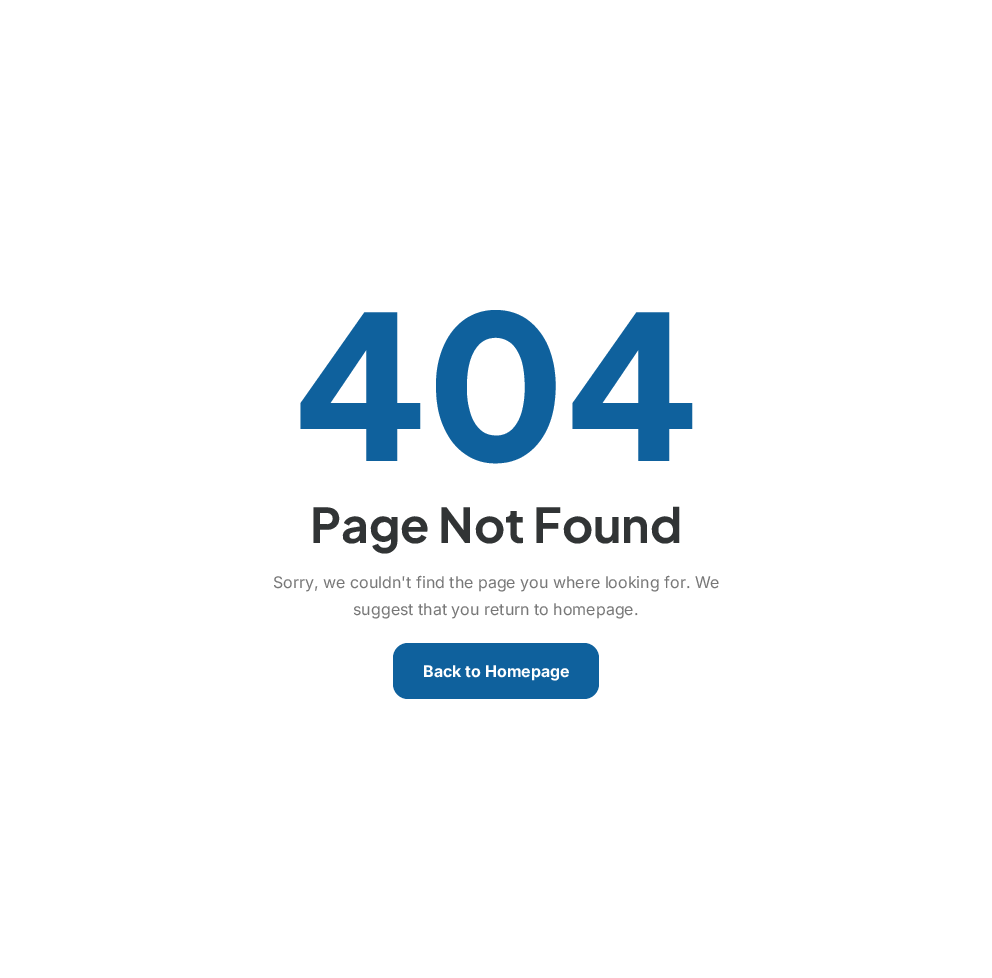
%!PS-Adobe-3.0
%%BoundingBox: 0 0 992 978
%%LanguageLevel: 3
%%Pages: 1
%%EndComments
%%BeginProlog
/rrect { 5 dict begin { /r /h /w /y /x } { exch def } forall
  x r add y moveto x w add y 2 copy h add r arct x w add y h add x 1 index r arct
  x y h add x y r arct x y 2 copy exch w add exch r arct closepath end } def
%%EndProlog
%%BeginSetup
<< /PageSize [992 978] >> setpagedevice
%%EndSetup
%%Page: 1 1
0 978 translate 1 -1 scale
4 setmiterlimit
1 setgray
0 0 992 978 rectfill
0.059 0.38 0.616 setrgbcolor
393 643 206 56 15 rrect fill
/PlusJakartaSans-ExtraBold [200 0 0 -200 0 0] selectfont
294 461 moveto (404) show
/PlusJakartaSans-Bold [48 0 0 -48 0 0] selectfont
0.192 0.204 0.208 setrgbcolor
310 543 moveto (Page Not Found) show
/Inter-Regular [16 0 0 -16 0 0] selectfont
0.467 setgray
273 588 moveto (Sorry, we couldn't find the page you where looking for. We) show
353 615 moveto (suggest that you return to homepage.) show
/Inter-Bold [16 0 0 -16 0 0] selectfont
1 setgray
423 677 moveto (Back to Homepage) show
showpage
%%EOF
